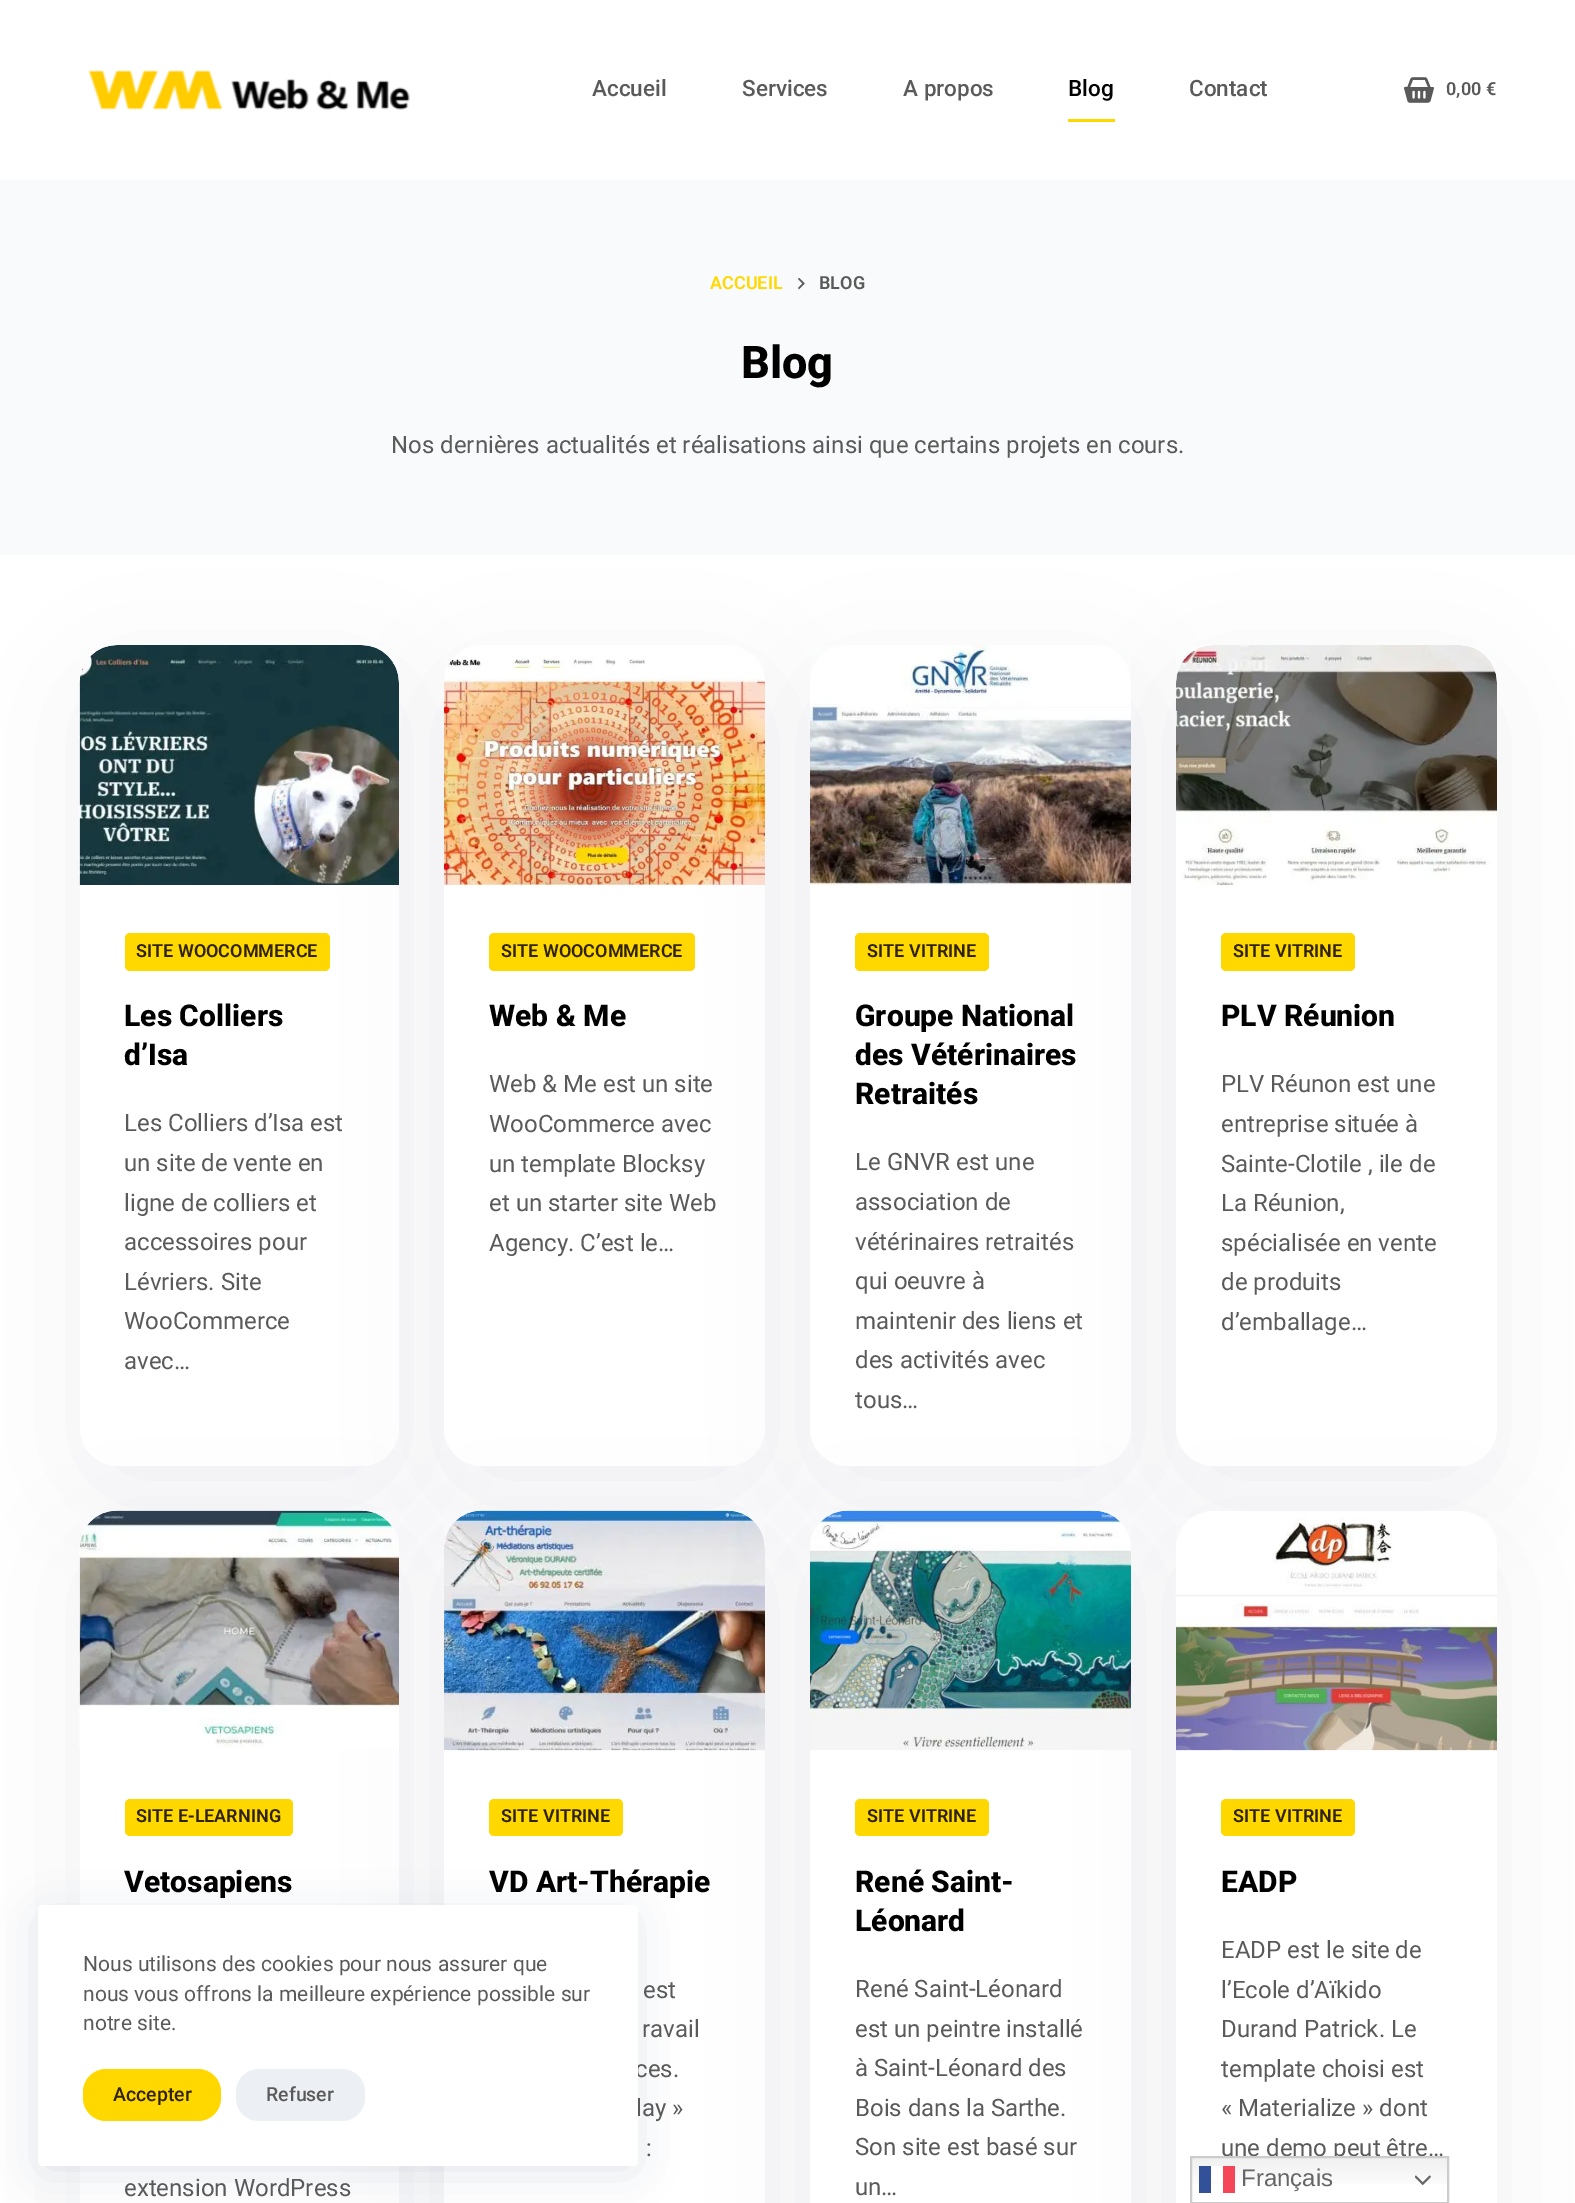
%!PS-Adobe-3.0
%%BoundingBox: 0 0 1575 2203
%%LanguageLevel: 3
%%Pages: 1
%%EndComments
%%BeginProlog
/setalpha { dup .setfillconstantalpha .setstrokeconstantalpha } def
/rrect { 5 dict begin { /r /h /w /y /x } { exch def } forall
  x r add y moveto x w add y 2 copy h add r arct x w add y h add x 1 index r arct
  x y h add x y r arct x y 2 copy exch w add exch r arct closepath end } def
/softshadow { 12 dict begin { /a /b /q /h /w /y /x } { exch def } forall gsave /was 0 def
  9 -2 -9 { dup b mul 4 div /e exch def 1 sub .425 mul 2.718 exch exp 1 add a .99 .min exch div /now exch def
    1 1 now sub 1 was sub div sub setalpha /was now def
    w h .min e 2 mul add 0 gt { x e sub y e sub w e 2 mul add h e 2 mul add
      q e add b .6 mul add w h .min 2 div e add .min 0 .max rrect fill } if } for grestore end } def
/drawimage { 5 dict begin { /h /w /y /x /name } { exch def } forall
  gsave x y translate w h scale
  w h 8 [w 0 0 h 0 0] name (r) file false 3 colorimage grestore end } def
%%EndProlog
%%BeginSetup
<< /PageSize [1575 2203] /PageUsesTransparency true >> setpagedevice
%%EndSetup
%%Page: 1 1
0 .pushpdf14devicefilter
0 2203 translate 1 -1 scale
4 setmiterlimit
1 setgray
0 0 1575 2203 rectfill
(images/1.raw) 88 70 322 40 drawimage
1 0.847 0 setrgbcolor
1068 119 47 3 rectfill
(images/2.raw) 1404 77 30 26 drawimage
0.753 0.776 0.827 setrgbcolor
80 675 319 821 38 60 0.25 softshadow
1 setgray
80 645 319 821 38 rrect fill
1 0.847 0 setrgbcolor
125 933 205 38 5 rrect fill
0.753 0.776 0.827 setrgbcolor
444 675 321 821 38 60 0.25 softshadow
1 setgray
444 645 321 821 38 rrect fill
1 0.847 0 setrgbcolor
489 933 206 38 5 rrect fill
0.753 0.776 0.827 setrgbcolor
810 675 321 821 38 60 0.25 softshadow
1 setgray
810 645 321 821 38 rrect fill
0.753 0.776 0.827 setrgbcolor
1176 675 321 821 38 60 0.25 softshadow
0.976 0.98 0.984 setrgbcolor
0 180 1575 375 rectfill
(images/3.raw) 798 278 7 12 drawimage
(images/4.raw) 79 645 320 240 drawimage
(images/5.raw) 444 657 321 228 drawimage
(images/6.raw) 810 645 321 240 drawimage
1 0.847 0 setrgbcolor
855 933 134 38 5 rrect fill
1 setgray
1176 645 321 821 38 rrect fill
(images/7.raw) 1176 645 321 240 drawimage
1 0.847 0 setrgbcolor
1221 933 134 38 5 rrect fill
0.753 0.776 0.827 setrgbcolor
80 1541 319 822 38 60 0.25 softshadow
1 setgray
80 1511 319 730 38 rrect fill
1 0.847 0 setrgbcolor
125 1799 168 37 5 rrect fill
0.753 0.776 0.827 setrgbcolor
444 1541 321 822 38 60 0.25 softshadow
(images/8.raw) 79 1510 320 238 drawimage
1 setgray
444 1511 321 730 38 rrect fill
0.753 0.776 0.827 setrgbcolor
810 1541 321 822 38 60 0.25 softshadow
(images/9.raw) 444 1510 321 241 drawimage
1 0.847 0 setrgbcolor
489 1799 134 37 5 rrect fill
1 setgray
810 1511 321 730 38 rrect fill
0.753 0.776 0.827 setrgbcolor
1176 1541 321 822 38 60 0.25 softshadow
(images/10.raw) 810 1510 321 240 drawimage
1 0.847 0 setrgbcolor
855 1799 134 37 5 rrect fill
1 setgray
1176 1511 321 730 38 rrect fill
(images/11.raw) 1176 1517 321 234 drawimage
1 0.847 0 setrgbcolor
1221 1799 134 37 5 rrect fill
0.133 0.22 0.396 setrgbcolor
45 1920 585 246 0 22.5 0.15 softshadow
/Roboto-Medium [22.5 0 0 -22.5 0 0] selectfont
0.353 setgray
592 96 moveto (Accueil) show
742 96 moveto (Services) show
903 96 moveto (A propos) show
0 setgray
1068 96 moveto (Blog) show
0.353 setgray
1189 96 moveto (Contact) show
/Roboto-SemiBold [18 0 0 -18 0 0] selectfont
1446 95 moveto (0,00 €) show
1 0.847 0 setrgbcolor
710 289 moveto (ACCUEIL) show
0.353 setgray
819 289 moveto (BLOG) show
/Roboto-ExtraBold [45 0 0 -45 0 0] selectfont
0 setgray
741 378 moveto (Blog) show
/Roboto-Regular [24 0 0 -24 0 0] selectfont
0.353 setgray
391 453 moveto (Nos dernières actualités et réalisations ainsi que certains projets en cours.) show
/Roboto-SemiBold [18 0 0 -18 0 0] selectfont
0.184 0.133 0.027 setrgbcolor
136 957 moveto (SITE WOOCOMMERCE) show
/Roboto-ExtraBold [30 0 0 -30 0 0] selectfont
0 setgray
124 1026 moveto (Les Colliers) show
124 1065 moveto (d’Isa) show
/Roboto-Regular [24 0 0 -24 0 0] selectfont
0.353 setgray
124 1131 moveto (Les Colliers d’Isa est) show
124 1171 moveto (un site de vente en) show
124 1211 moveto (ligne de colliers et) show
124 1250 moveto (accessoires pour) show
124 1290 moveto (Lévriers. Site) show
124 1329 moveto (WooCommerce) show
124 1369 moveto (avec…) show
/Roboto-SemiBold [18 0 0 -18 0 0] selectfont
0.184 0.133 0.027 setrgbcolor
501 957 moveto (SITE WOOCOMMERCE) show
/Roboto-ExtraBold [30 0 0 -30 0 0] selectfont
0 setgray
489 1026 moveto (Web & Me) show
/Roboto-Regular [24 0 0 -24 0 0] selectfont
0.353 setgray
489 1092 moveto (Web & Me est un site) show
489 1132 moveto (WooCommerce avec) show
489 1172 moveto (un template Blocksy) show
489 1211 moveto (et un starter site Web) show
489 1251 moveto (Agency. C’est le…) show
/Roboto-SemiBold [18 0 0 -18 0 0] selectfont
0.184 0.133 0.027 setrgbcolor
867 957 moveto (SITE VITRINE) show
/Roboto-ExtraBold [30 0 0 -30 0 0] selectfont
0 setgray
855 1026 moveto (Groupe National) show
855 1065 moveto (des Vétérinaires) show
855 1104 moveto (Retraités) show
/Roboto-Regular [24 0 0 -24 0 0] selectfont
0.353 setgray
855 1170 moveto (Le GNVR est une) show
855 1210 moveto (association de) show
855 1250 moveto (vétérinaires retraités) show
855 1289 moveto (qui oeuvre à) show
855 1329 moveto (maintenir des liens et) show
855 1368 moveto (des activités avec) show
855 1408 moveto (tous…) show
/Roboto-SemiBold [18 0 0 -18 0 0] selectfont
0.184 0.133 0.027 setrgbcolor
1233 957 moveto (SITE VITRINE) show
/Roboto-ExtraBold [30 0 0 -30 0 0] selectfont
0 setgray
1221 1026 moveto (PLV Réunion) show
/Roboto-Regular [24 0 0 -24 0 0] selectfont
0.353 setgray
1221 1092 moveto (PLV Réunon est une) show
1221 1132 moveto (entreprise située à) show
1221 1172 moveto (Sainte-Clotile , ile de) show
1221 1211 moveto (La Réunion,) show
1221 1251 moveto (spécialisée en vente) show
1221 1290 moveto (de produits) show
1221 1330 moveto (d’emballage…) show
/Roboto-SemiBold [18 0 0 -18 0 0] selectfont
0.184 0.133 0.027 setrgbcolor
136 1822 moveto (SITE E-LEARNING) show
/Roboto-ExtraBold [30 0 0 -30 0 0] selectfont
0 setgray
124 1892 moveto (Vetosapiens) show
/Roboto-Regular [24 0 0 -24 0 0] selectfont
0.353 setgray
124 2196 moveto (extension WordPress) show
/Roboto-SemiBold [18 0 0 -18 0 0] selectfont
0.184 0.133 0.027 setrgbcolor
501 1822 moveto (SITE VITRINE) show
/Roboto-ExtraBold [30 0 0 -30 0 0] selectfont
0 setgray
489 1892 moveto (VD Art-Thérapie) show
/Roboto-Regular [24 0 0 -24 0 0] selectfont
0.353 setgray
643 1998 moveto (est) show
642 2037 moveto (ravail) show
635 2077 moveto (ces.) show
636 2116 moveto (lay ») show
646 2156 moveto (:) show
/Roboto-SemiBold [18 0 0 -18 0 0] selectfont
0.184 0.133 0.027 setrgbcolor
867 1822 moveto (SITE VITRINE) show
/Roboto-ExtraBold [30 0 0 -30 0 0] selectfont
0 setgray
855 1892 moveto (René Saint-) show
855 1931 moveto (Léonard) show
/Roboto-Regular [24 0 0 -24 0 0] selectfont
0.353 setgray
855 1997 moveto (René Saint-Léonard) show
855 2037 moveto (est un peintre installé) show
855 2076 moveto (à Saint-Léonard des) show
855 2116 moveto (Bois dans la Sarthe.) show
855 2155 moveto (Son site est basé sur) show
855 2195 moveto (un…) show
/Roboto-SemiBold [18 0 0 -18 0 0] selectfont
0.184 0.133 0.027 setrgbcolor
1233 1822 moveto (SITE VITRINE) show
/Roboto-ExtraBold [30 0 0 -30 0 0] selectfont
0 setgray
1221 1892 moveto (EADP) show
/Roboto-Regular [24 0 0 -24 0 0] selectfont
0.353 setgray
1221 1958 moveto (EADP est le site de) show
1221 1998 moveto (l’Ecole d’Aïkido) show
1221 2037 moveto (Durand Patrick. Le) show
1221 2077 moveto (template choisi est) show
1221 2116 moveto (« Materialize » dont) show
1221 2156 moveto (une demo peut être…) show
1 setgray
38 1905 600 261 5 rrect fill
/Roboto-Regular [21 0 0 -21 0 0] selectfont
0.353 setgray
83 1971 moveto (Nous utilisons des cookies pour nous assurer que) show
83 2001 moveto (nous vous offrons la meilleure expérience possible sur) show
83 2030 moveto (notre site.) show
1 0.847 0 setrgbcolor
83 2069 138 52 23 rrect fill
/Roboto-Medium [19.5 0 0 -19.5 0 0] selectfont
0.184 0.133 0.027 setrgbcolor
113 2101 moveto (Accepter) show
0.925 0.937 0.953 setrgbcolor
236 2069 129 52 23 rrect fill
0.353 setgray
266 2101 moveto (Refuser) show
gsave newpath 1192 2158 moveto 1447 2158 lineto 1447 2184 lineto 1192 2184 lineto closepath clip newpath
<< /ShadingType 2 /ColorSpace /DeviceRGB /Coords [1319 2156 1319 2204] /Extend [true true] /Function << /FunctionType 3 /Domain [0 1] /Functions [<< /FunctionType 2 /Domain [0 1] /C0 [0.937 0.937 0.937] /C1 [1 1 1] /N 1 >> << /FunctionType 2 /Domain [0 1] /C0 [1 1 1] /C1 [1 1 1] /N 1 >>] /Bounds [0.7] /Encode [0 1 0 1] >> >> shfill grestore
0.8 setgray
2 setlinewidth
1191 2157 257 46 rectstroke
0.2 0.318 0.596 setrgbcolor
1199 2166 12 27 rectfill
0.8 setalpha
1 setgray
1211 2166 12 16 rectfill
1 setalpha
0.961 0.275 0.349 setrgbcolor
1223 2166 12 27 rectfill
/LiberationSans-Regular [24 0 0 -24 0 0] selectfont
0.4 setgray
1241 2186 moveto (Français) show
(images/12.raw) 1415 2175 16 10 drawimage
.poppdf14devicefilter showpage
%%EOF
